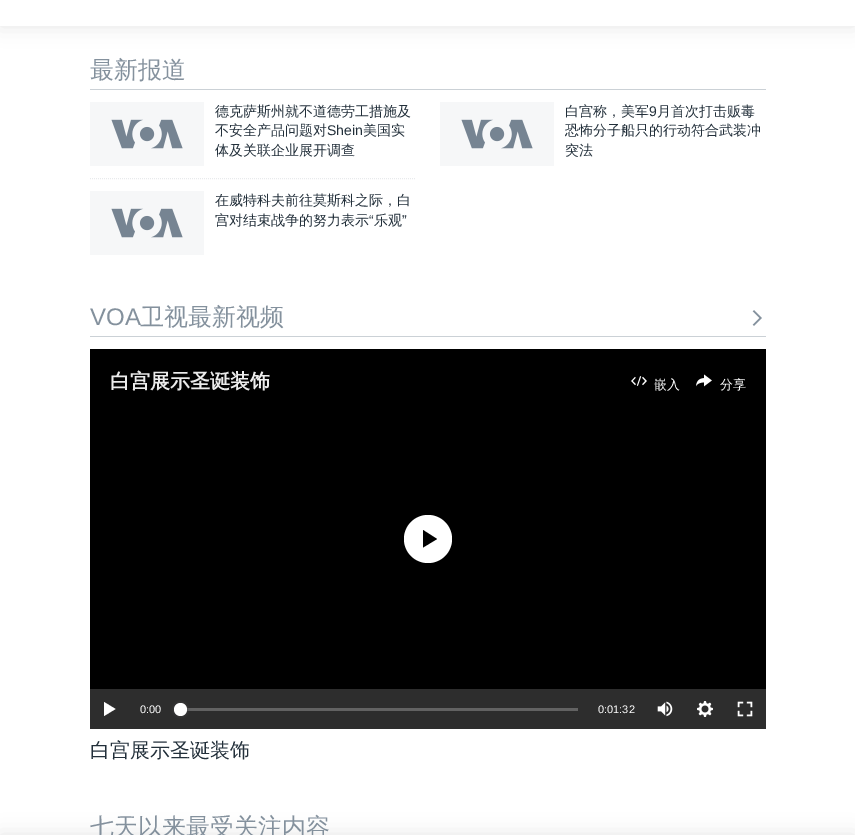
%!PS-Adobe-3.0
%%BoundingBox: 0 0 855 835
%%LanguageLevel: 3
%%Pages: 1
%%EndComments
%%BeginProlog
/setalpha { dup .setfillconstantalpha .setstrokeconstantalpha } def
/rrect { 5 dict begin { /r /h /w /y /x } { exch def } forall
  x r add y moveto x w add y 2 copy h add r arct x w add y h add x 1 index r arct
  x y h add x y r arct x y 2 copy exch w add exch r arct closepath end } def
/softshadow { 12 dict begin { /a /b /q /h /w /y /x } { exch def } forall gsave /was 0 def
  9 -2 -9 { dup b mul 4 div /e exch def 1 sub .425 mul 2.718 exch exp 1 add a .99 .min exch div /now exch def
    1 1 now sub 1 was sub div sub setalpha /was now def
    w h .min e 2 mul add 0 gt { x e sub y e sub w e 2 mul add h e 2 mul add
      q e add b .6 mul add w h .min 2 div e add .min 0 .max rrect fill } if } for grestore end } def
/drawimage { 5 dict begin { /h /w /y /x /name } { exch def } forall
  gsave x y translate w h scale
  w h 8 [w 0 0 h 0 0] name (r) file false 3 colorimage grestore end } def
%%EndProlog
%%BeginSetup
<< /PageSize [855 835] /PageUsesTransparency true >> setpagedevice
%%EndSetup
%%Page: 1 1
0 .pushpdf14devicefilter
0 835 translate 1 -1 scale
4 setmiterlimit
1 setgray
0 0 855 835 rectfill
0 setgray
0 -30 855 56 0 10 0.1 softshadow
1 setgray
0 0 855 26 rectfill
0 setgray
0 835 855 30 0 10 0.1 softshadow
0.796 0.82 0.839 setrgbcolor
90 89 676 1 rectfill
0.965 0.969 0.973 setrgbcolor
90 102 114 64 rectfill
(images/1.raw) 111 119 72 30 drawimage
440 102 114 64 rectfill
(images/1.raw) 461 119 72 30 drawimage
0.91 0.918 0.925 setrgbcolor
[1 1] 0 setdash
newpath 90 178.5 moveto 416 178.5 lineto stroke
0.965 0.969 0.973 setrgbcolor
90 191 114 64 rectfill
(images/1.raw) 111 208 72 30 drawimage
0.796 0.82 0.839 setrgbcolor
90 336 676 1 rectfill
(images/2.raw) 752 310 10 16 drawimage
0 setgray
90 349 676 340 rectfill
(images/3.raw) 631 376 16 10 drawimage
(images/4.raw) 696 374 16 13 drawimage
1 setgray
newpath 428 539 24 0 360 arc closepath fill
0 setgray
newpath 423 547.5 moveto 437 539 lineto 423 530 lineto closepath fill
0.176 setgray
90 689 676 40 rectfill
1 setgray
newpath 104 716 moveto 115.5 709 lineto 104 702 lineto closepath fill
0.384 setgray
181 708 397 3 rectfill
0.255 0.255 0.267 setrgbcolor
174 703 13 13 6.5 1.5 1 softshadow
1 setgray
newpath 180.5 709.5 6.5 0 360 arc closepath fill
(images/5.raw) 657 701 16 16 drawimage
(images/6.raw) 697 701 16 16 drawimage
(images/7.raw) 737 701 16 16 drawimage
/WenQuanYiZenHei-Medium [24 0 0 -24 0 0] selectfont
0.518 0.569 0.616 setrgbcolor
90 78 moveto (最新报道) show
/WenQuanYiZenHei-Medium [14 0 0 -14 0 0] selectfont
0.133 0.184 0.227 setrgbcolor
215 116 moveto (德克萨斯州就不道德劳工措施及) show
215 135 moveto (不安全产品问题对) show
/LiberationSans-Regular [14 0 0 -14 0 0] selectfont
327 135 moveto (Shein) show
/WenQuanYiZenHei-Medium [14 0 0 -14 0 0] selectfont
363 135 moveto (美国实) show
215 155 moveto (体及关联企业展开调查) show
565 116 moveto (白宫称，美军) show
/LiberationSans-Regular [14 0 0 -14 0 0] selectfont
649 116 moveto (9) show
/WenQuanYiZenHei-Medium [14 0 0 -14 0 0] selectfont
657 116 moveto (月首次打击贩毒) show
565 135 moveto (恐怖分子船只的行动符合武装冲) show
565 155 moveto (突法) show
215 205 moveto (在威特科夫前往莫斯科之际，白) show
215 225 moveto (宫对结束战争的努力表示) show
/LiberationSans-Regular [14 0 0 -14 0 0] selectfont
369 225 moveto (“) show
/WenQuanYiZenHei-Medium [14 0 0 -14 0 0] selectfont
374 225 moveto (乐观) show
/LiberationSans-Regular [14 0 0 -14 0 0] selectfont
402 225 moveto (”) show
/LiberationSans-Regular [24 0 0 -24 0 0] selectfont
0.518 0.569 0.616 setrgbcolor
90 325 moveto (VOA) show
/WenQuanYiZenHei-Medium [24 0 0 -24 0 0] selectfont
140 325 moveto (卫视最新视频) show
/WenQuanYiZenHei-Bold [20 0 0 -20 0 0] selectfont
0.922 setgray
110 388 moveto (白宫展示圣诞装饰) show
/WenQuanYiZenHei-Medium [13 0 0 -13 0 0] selectfont
1 setgray
654 389 moveto (嵌入) show
720 389 moveto (分享) show
/LiberationSans-Regular [11 0 0 -11 0 0] selectfont
140 713 moveto (0:00) show
598 713 moveto (0:01:32) show
/WenQuanYiZenHei-Medium [20 0 0 -20 0 0] selectfont
0.133 0.184 0.227 setrgbcolor
90 757 moveto (白宫展示圣诞装饰) show
/WenQuanYiZenHei-Medium [24 0 0 -24 0 0] selectfont
0.518 0.569 0.616 setrgbcolor
90 835 moveto (七天以来最受关注内容) show
.poppdf14devicefilter showpage
%%EOF
